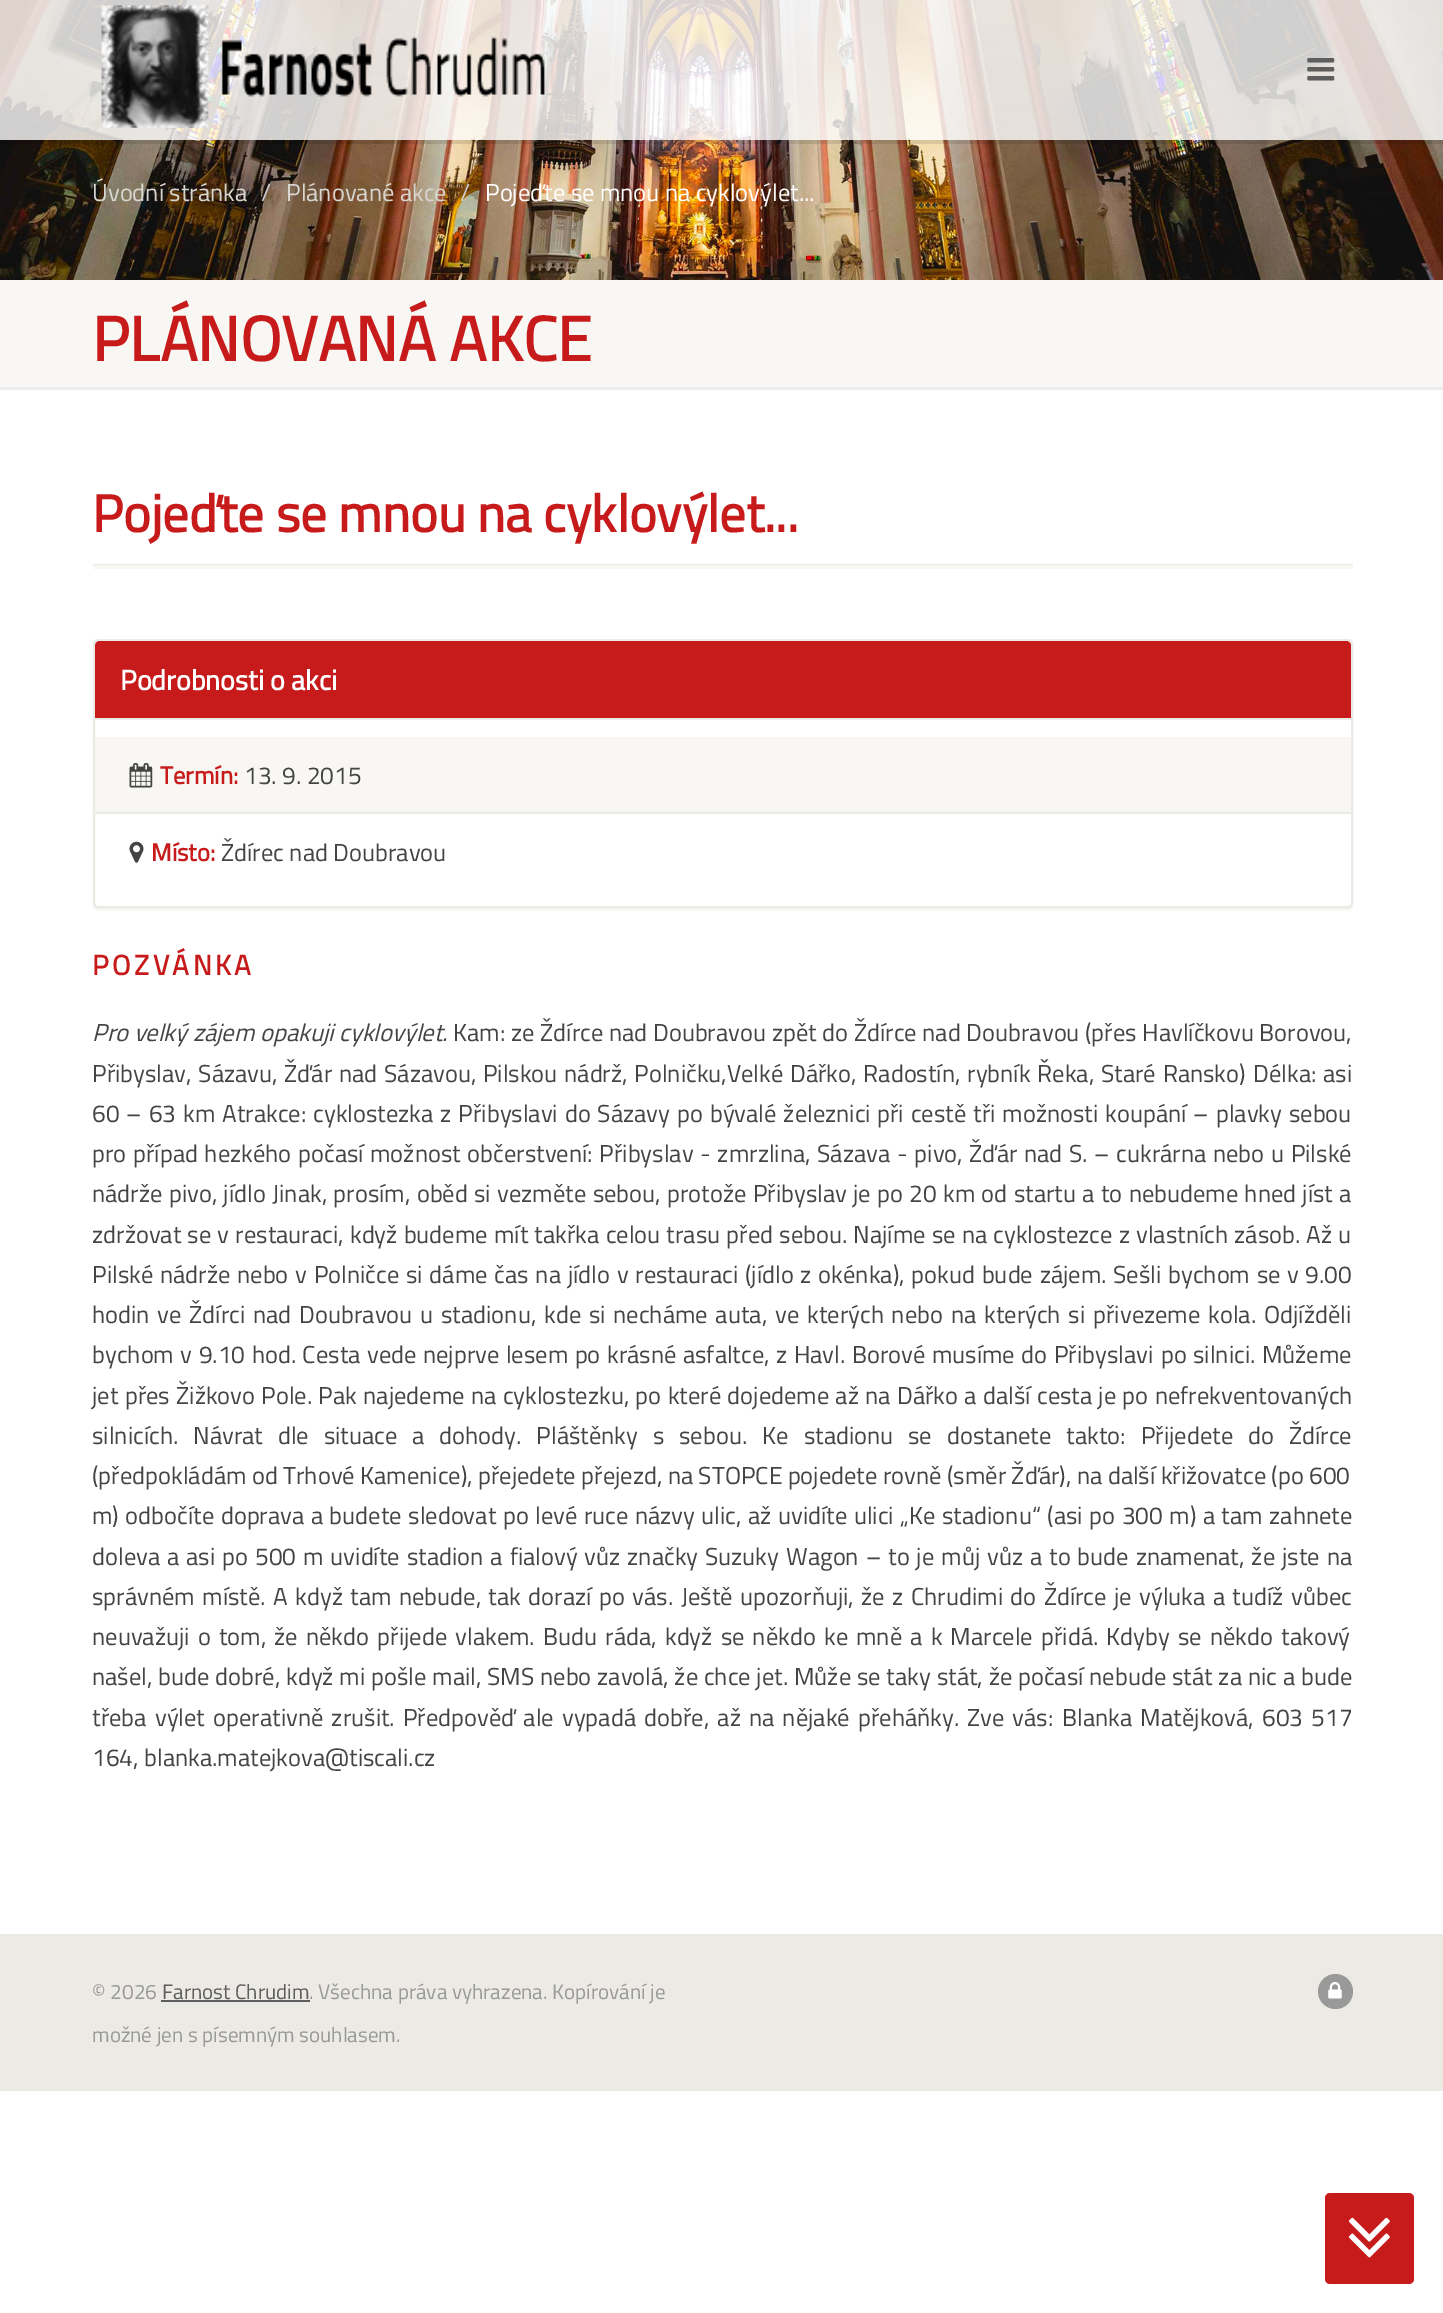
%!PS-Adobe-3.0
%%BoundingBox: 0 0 1443 2313
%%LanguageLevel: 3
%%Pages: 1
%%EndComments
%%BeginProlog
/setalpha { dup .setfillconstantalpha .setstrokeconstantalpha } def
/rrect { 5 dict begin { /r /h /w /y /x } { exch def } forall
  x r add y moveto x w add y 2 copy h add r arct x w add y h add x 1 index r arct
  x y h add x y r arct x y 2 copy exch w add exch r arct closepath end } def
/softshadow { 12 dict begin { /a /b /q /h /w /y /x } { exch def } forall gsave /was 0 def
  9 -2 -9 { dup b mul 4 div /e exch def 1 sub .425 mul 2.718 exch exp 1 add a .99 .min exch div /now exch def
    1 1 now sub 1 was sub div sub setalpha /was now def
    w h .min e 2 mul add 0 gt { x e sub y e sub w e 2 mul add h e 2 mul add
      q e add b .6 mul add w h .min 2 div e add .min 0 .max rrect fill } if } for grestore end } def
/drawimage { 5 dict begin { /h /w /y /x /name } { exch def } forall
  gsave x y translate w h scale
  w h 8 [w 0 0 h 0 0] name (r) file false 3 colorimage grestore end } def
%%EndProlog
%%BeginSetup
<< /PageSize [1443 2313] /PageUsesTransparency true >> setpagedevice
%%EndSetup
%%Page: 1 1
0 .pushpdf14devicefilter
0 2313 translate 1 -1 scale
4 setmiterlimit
1 setgray
0 0 1443 2313 rectfill
(images/3.raw) 0 0 1443 280 drawimage
0.1 setalpha
0 setgray
newpath 0 140 moveto 0 144 lineto 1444 144 lineto 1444 4 lineto 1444 140 lineto closepath fill
0.8 setalpha
1 setgray
0 0 1443 140 rectfill
1 setalpha
(images/1.raw) 101 5 444 123 drawimage
(images/2.raw) 1307 58 28 23 drawimage
0.929 setgray
newpath 0 387 moveto 0 390 lineto 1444 390 lineto 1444 284 lineto 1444 387 lineto closepath fill
0.973 0.969 0.953 setrgbcolor
0 280 1443 107 rectfill
0.925 0.918 0.894 setrgbcolor
93 564 1260 1 rectfill
0.973 0.969 0.953 setrgbcolor
93 565 1260 4 rectfill
0 setgray
93 641 1260 269 5 1 0.05 softshadow
1 setgray
94 640 1258 267 4 rrect gsave fill grestore
0.925 0.918 0.894 setrgbcolor
2 setlinewidth
stroke
0.78 0.106 0.106 setrgbcolor
newpath 100 641 moveto 1346 641 lineto 1349 641 1351 643 1351 646 curveto 1351 719 lineto 95 719 lineto 95 646 lineto 95 643 97 641 100 641 curveto closepath fill
0.925 0.918 0.894 setrgbcolor
95 718 1256 2 rectfill
0.973 0.969 0.953 setrgbcolor
95 737 1256 75 rectfill
0.925 0.918 0.894 setrgbcolor
95 812 1256 2 rectfill
(images/4.raw) 129 763 24 25 drawimage
(images/5.raw) 129 841 15 22 drawimage
0 1934 1443 157 rectfill
0.369 setgray
161 2000 149 2 rectfill
0.6 setgray
newpath 1335.5 1991.5 17.5 0 360 arc closepath fill
(images/6.raw) 1328 1982 14 17 drawimage
0.78 0.106 0.106 setrgbcolor
1325 2193 89 91 5 rrect fill
(images/7.raw) 1348 2217 42 41 drawimage
/TitilliumWeb-Regular [24.5 0 0 -24.5 0 0] selectfont
0.847 0.839 0.82 setrgbcolor
92 201 moveto (Úvodní stránka) show
0.8 setgray
261 201 moveto (/) show
0.847 0.839 0.82 setrgbcolor
286 201 moveto (Plánované akce) show
0.8 setgray
460 201 moveto (/) show
1 setgray
485 201 moveto (Pojeďte se mnou na cyklovýlet...) show
/TitilliumWeb-Bold [63 0 0 -63 0 0] selectfont
0.78 0.106 0.106 setrgbcolor
92 361 moveto (PLÁNOVANÁ AKCE) show
/TitilliumWeb-Bold [52.5 0 0 -52.5 0 0] selectfont
92 532 moveto (Pojeďte se mnou na cyklovýlet...) show
/TitilliumWeb-Bold [28 0 0 -28 0 0] selectfont
1 setgray
120 690 moveto (Podrobnosti o akci) show
/TitilliumWeb-Bold [24.5 0 0 -24.5 0 0] selectfont
0.78 0.106 0.106 setrgbcolor
160 784 moveto (Termín:) show
/TitilliumWeb-Regular [24.5 0 0 -24.5 0 0] selectfont
0.267 setgray
244 784 moveto (13. 9. 2015) show
/TitilliumWeb-Bold [24.5 0 0 -24.5 0 0] selectfont
0.78 0.106 0.106 setrgbcolor
151 861 moveto (Místo:) show
/TitilliumWeb-Regular [24.5 0 0 -24.5 0 0] selectfont
0.267 setgray
221 861 moveto (Ždírec nad Doubravou) show
/TitilliumWeb-Bold [28 0 0 -28 0 0] selectfont
0.78 0.106 0.106 setrgbcolor
92 975 moveto 3.5 0 (POZVÁNKA) ashow
/TitilliumWeb-Italic [24.5 0 0 -24.5 0 0] selectfont
0.267 setgray
92 1041 moveto 0.25 0 32 (Pro velký zájem opakuji cyklovýlet.) widthshow
/TitilliumWeb-Regular [24.5 0 0 -24.5 0 0] selectfont
453 1041 moveto (Kam:) show
511 1041 moveto 0.25 0 32 (ze Ždírce nad Doubravou zpět do Ždírce nad Doubravou) widthshow
1085 1041 moveto (\(přes Havlíčkovu Borovou,) show
92 1082 moveto 1.3 0 32 (Přibyslav, Sázavu, Žďár nad Sázavou, Pilskou nádrž, Polničku,Velké Dářko, Radostín, rybník Řeka, Staré Ransko\)) widthshow
1253 1082 moveto (Délka:) show
1323 1082 moveto (asi) show
92 1122 moveto 1.5 0 32 (60 – 63 km) widthshow
222 1122 moveto (Atrakce:) show
313 1122 moveto 1.5 0 32 (cyklostezka z Přibyslavi do Sázavy po bývalé železnici) widthshow
877 1122 moveto 1.5 0 32 (při cestě tři možnosti koupání – plavky sebou) widthshow
92 1162 moveto 1.25 0 32 (pro případ hezkého počasí) widthshow
370 1162 moveto 1.25 0 32 (možnost občerstvení: Přibyslav - zmrzlina, Sázava - pivo, Žďár nad S. – cukrárna nebo u Pilské) widthshow
92 1202 moveto 0.9 0 32 (nádrže pivo, jídlo) widthshow
272 1202 moveto 0.9 0 32 (Jinak, prosím, oběd si vezměte sebou, protože Přibyslav je po 20 km od startu a to nebudeme hned jíst a) widthshow
92 1243 moveto 0.75 0 32 (zdržovat se v restauraci, když budeme mít takřka celou trasu před sebou. Najíme se na cyklostezce z vlastních zásob. Až u) widthshow
92 1283 moveto 1.4 0 32 (Pilské nádrže nebo v Polničce si dáme čas na jídlo v restauraci \(jídlo z okénka\), pokud bude zájem.) widthshow
1113 1283 moveto 1.5 0 32 (Sešli bychom se v) widthshow
1305 1283 moveto (9.00) show
92 1323 moveto 2.4 0 32 (hodin ve Ždírci nad Doubravou u stadionu, kde si necháme auta, ve kterých nebo na kterých si přivezeme kola. Odjížděli) widthshow
92 1363 moveto 1.1 0 32 (bychom v 9.10 hod. Cesta vede nejprve lesem po krásné asfaltce, z Havl. Borové musíme do Přibyslavi) widthshow
1161 1363 moveto (po) show
1193 1363 moveto 1.1 0 32 (silnici. Můžeme) widthshow
92 1404 moveto 0.9 0 32 (jet přes Žižkovo Pole. Pak najedeme na cyklostezku, po které dojedeme až na Dářko a další cesta je po nefrekventovaných) widthshow
92 1444 moveto 9.5 0 32 (silnicích. Návrat dle situace a dohody. Pláštěnky s sebou.) widthshow
762 1444 moveto 10 0 32 (Ke stadionu) widthshow
908 1444 moveto 9.5 0 32 (se dostanete takto: Přijedete do Ždírce) widthshow
92 1484 moveto (\(předpokládám od Trhové Kamenice\), přejedete přejezd, na STOPCE pojedete rovně \(směr Žďár\), na další křižovatce \(po 600) show
92 1524 moveto 1.1 0 32 (m\) odbočíte doprava a budete sledovat po levé ruce názvy ulic, až uvidíte ulici „Ke stadionu“ \(asi po 300 m\) a tam zahnete) widthshow
92 1565 moveto 1.55 0 32 (doleva a asi po 500 m uvidíte stadion a fialový vůz značky Suzuky Wagon – to je můj vůz a to bude znamenat, že jste na) widthshow
92 1605 moveto 2 0 32 (správném místě. A když tam nebude, tak dorazí po vás.) widthshow
681 1605 moveto 2 0 32 (Ještě upozorňuji, že z Chrudimi do Ždírce je výluka a tudíž vůbec) widthshow
92 1645 moveto 2.75 0 32 (neuvažuji o tom, že někdo přijede vlakem.) widthshow
543 1645 moveto 2.75 0 32 (Budu ráda, když se někdo ke mně a k Marcele přidá. Kdyby se někdo takový) widthshow
92 1685 moveto 0.4 0 32 (našel, bude dobré, když mi pošle mail, SMS nebo zavolá, že chce jet. Může se taky stát, že počasí nebude stát za nic a bude) widthshow
92 1726 moveto 2.75 0 32 (třeba výlet operativně zrušit. Předpověď ale vypadá dobře, až na nějaké přeháňky.) widthshow
967 1726 moveto 2.75 0 32 (Zve vás:) widthshow
1062 1726 moveto 2.75 0 32 (Blanka Matějková, 603 517) widthshow
92 1766 moveto (164, blanka.matejkova@tiscali.cz) show
/TitilliumWeb-Regular [21 0 0 -21 0 0] selectfont
0.6 setgray
92 1999 moveto (© 2026) show
0.369 setgray
162 1999 moveto (Farnost Chrudim) show
0.6 setgray
309 1999 moveto (. Všechna práva vyhrazena. Kopírování je) show
92 2042 moveto (možné jen s písemným souhlasem.) show
.poppdf14devicefilter showpage
%%EOF
